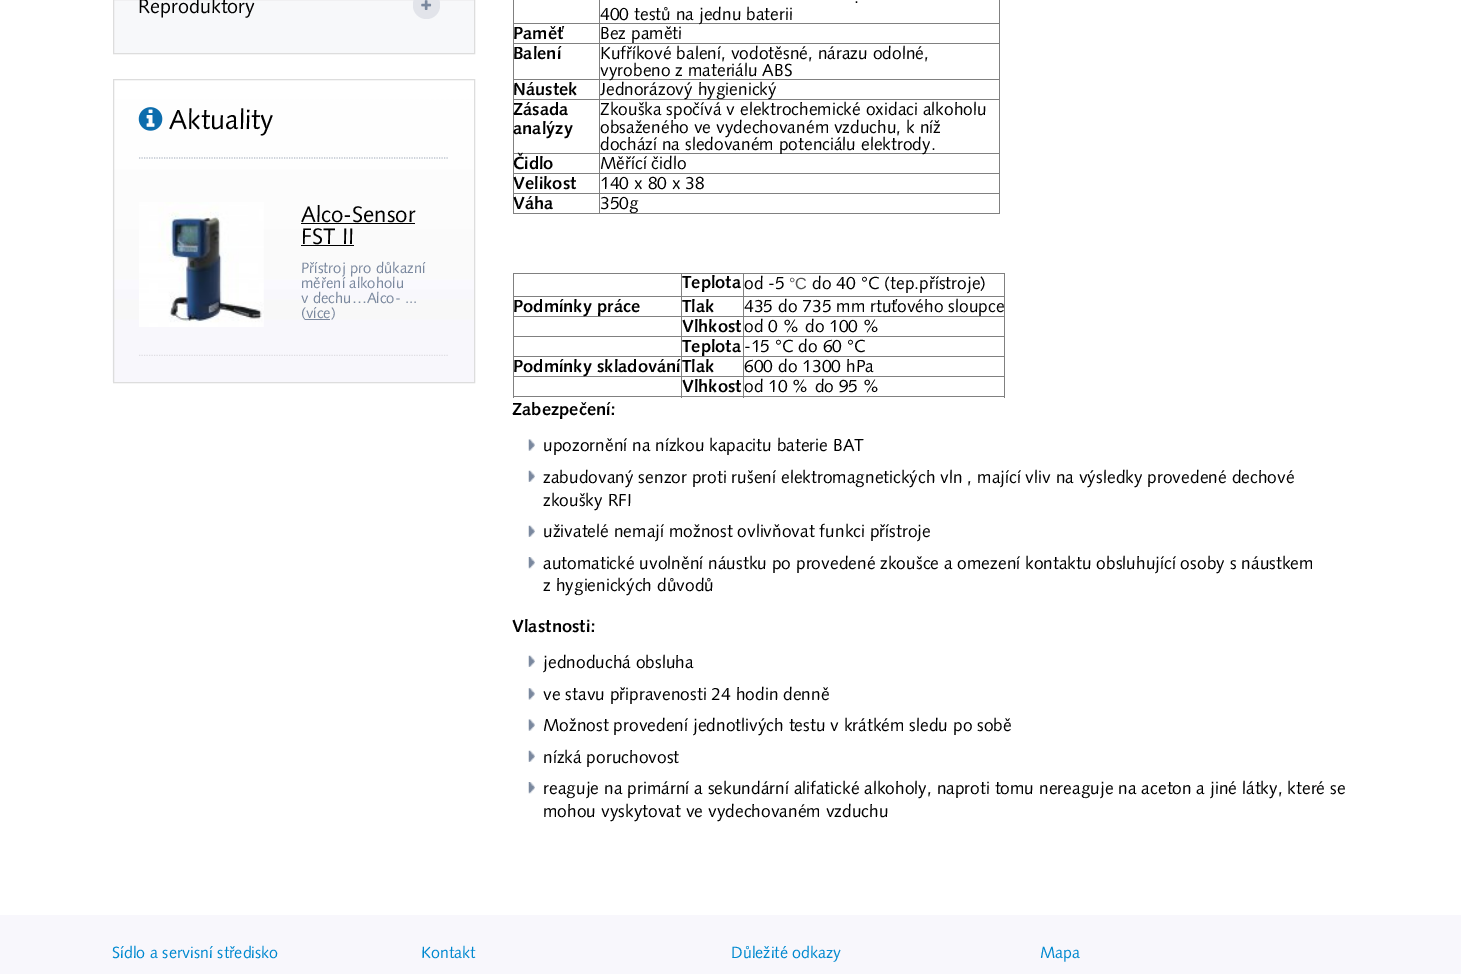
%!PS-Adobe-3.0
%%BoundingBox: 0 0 1461 974
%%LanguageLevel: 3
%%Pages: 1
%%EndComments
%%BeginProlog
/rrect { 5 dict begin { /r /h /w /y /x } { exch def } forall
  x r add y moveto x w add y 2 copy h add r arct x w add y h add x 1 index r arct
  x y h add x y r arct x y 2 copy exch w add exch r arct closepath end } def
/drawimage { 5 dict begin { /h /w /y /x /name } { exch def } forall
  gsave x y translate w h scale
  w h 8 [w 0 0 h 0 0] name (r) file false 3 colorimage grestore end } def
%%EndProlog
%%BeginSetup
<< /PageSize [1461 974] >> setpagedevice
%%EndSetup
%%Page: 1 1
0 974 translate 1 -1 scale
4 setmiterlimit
1 setgray
0 0 1461 974 rectfill
0.969 0.973 0.98 setrgbcolor
newpath 113.5 -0.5 moveto 474.5 -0.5 lineto 474.5 53.5 lineto 113.5 53.5 lineto closepath gsave fill grestore
0.867 setgray
stroke
0.886 0.894 0.918 setrgbcolor
413 -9 27 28 13.5 rrect fill
(images/1.raw) 421 0 11 10 drawimage
(images/2.raw) 112 79 362 303 drawimage
0.867 setgray
113.5 79.5 361 303 rectstroke
0.737 0.765 0.808 setrgbcolor
1.2 setlinewidth
[1.25 1.25] 0 setdash
newpath 139 158 moveto 449 158 lineto stroke
(images/3.raw) 138 107 25 24 drawimage
gsave
139 159 310 197 rectclip
0.875 0.871 0.89 setrgbcolor
newpath 139 355.5 moveto 449 355.5 lineto stroke
grestore
(images/4.raw) 139 202 125 125 drawimage
0 setgray
301 223 114 1 rectfill
301 245 53 1 rectfill
0.478 0.533 0.62 setrgbcolor
305 319 25 1 rectfill
0.502 setgray
999 0 1 214 rectfill
513 213 487 1 rectfill
513 0 1 214 rectfill
599 23 401 1 rectfill
599 43 401 1 rectfill
599 79 401 1 rectfill
599 99 401 1 rectfill
599 153 401 1 rectfill
599 173 401 1 rectfill
599 193 401 1 rectfill
599 193 1 21 rectfill
513 193 87 1 rectfill
599 173 1 21 rectfill
513 173 87 1 rectfill
599 153 1 21 rectfill
513 153 87 1 rectfill
599 99 1 55 rectfill
513 99 87 1 rectfill
599 79 1 21 rectfill
513 79 87 1 rectfill
599 43 1 37 rectfill
513 43 87 1 rectfill
599 23 1 21 rectfill
513 23 87 1 rectfill
599 0 1 24 rectfill
513 273 492 1 rectfill
1004 273 1 125 rectfill
513 396 492 1 rectfill
513 273 1 125 rectfill
743 296 262 1 rectfill
743 316 262 1 rectfill
743 336 262 1 rectfill
743 356 262 1 rectfill
743 376 262 1 rectfill
743 376 1 22 rectfill
681 376 63 1 rectfill
743 356 1 22 rectfill
681 356 63 1 rectfill
743 336 1 22 rectfill
681 336 63 1 rectfill
743 316 1 22 rectfill
681 316 63 1 rectfill
743 296 1 22 rectfill
681 296 63 1 rectfill
681 376 1 22 rectfill
513 376 170 1 rectfill
681 356 1 22 rectfill
513 356 170 1 rectfill
681 336 1 22 rectfill
513 336 170 1 rectfill
681 316 1 22 rectfill
513 316 170 1 rectfill
681 296 1 22 rectfill
513 296 170 1 rectfill
681 273 1 25 rectfill
743 273 1 25 rectfill
(images/5.raw) 528 439 7 12 drawimage
(images/6.raw) 528 470 7 12 drawimage
(images/6.raw) 528 525 7 12 drawimage
(images/7.raw) 528 557 7 12 drawimage
(images/6.raw) 528 655 7 12 drawimage
(images/8.raw) 528 688 7 12 drawimage
(images/5.raw) 528 719 7 12 drawimage
(images/6.raw) 528 750 7 12 drawimage
(images/7.raw) 528 782 7 12 drawimage
0.973 0.969 0.988 setrgbcolor
0 915 1461 59 rectfill
/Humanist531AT-Regular [20 0 0 -20 0 0] selectfont
0 setgray
138 13 moveto (Reproduktory) show
/Humanist531AT-Regular [27.5 0 0 -27.5 0 0] selectfont
169 129 moveto (Aktuality) show
/Humanist531AT-Regular [22.5 0 0 -22.5 0 0] selectfont
301 222 moveto (Alco-Sensor) show
301 244 moveto (FST II) show
/Humanist531AT-Regular [15 0 0 -15 0 0] selectfont
0.478 0.533 0.62 setrgbcolor
301 273 moveto (Přístroj pro důkazní) show
301 288 moveto (měření alkoholu) show
301 303 moveto (v dechu…Alco- ...) show
301 318 moveto (\(více\)) show
/Humanist531AT-Regular [17.5 0 0 -17.5 0 0] selectfont
0 setgray
854 3 moveto (.) show
600 20 moveto (400 testů na jednu baterii) show
/Humanist531AT-Bold [17.5 0 0 -17.5 0 0] selectfont
513 39 moveto (Paměť) show
/Humanist531AT-Regular [17.5 0 0 -17.5 0 0] selectfont
600 39 moveto (Bez paměti) show
/Humanist531AT-Bold [17.5 0 0 -17.5 0 0] selectfont
513 59 moveto (Balení) show
/Humanist531AT-Regular [17.5 0 0 -17.5 0 0] selectfont
600 59 moveto (Kufříkové balení, vodotěsné, nárazu odolné,) show
600 76 moveto (vyrobeno z materiálu ABS) show
/Humanist531AT-Bold [17.5 0 0 -17.5 0 0] selectfont
513 95 moveto (Náustek) show
/Humanist531AT-Regular [17.5 0 0 -17.5 0 0] selectfont
600 95 moveto (Jednorázový hygienický) show
/Humanist531AT-Bold [17.5 0 0 -17.5 0 0] selectfont
513 115 moveto (Zásada) show
513 134 moveto (analýzy) show
/Humanist531AT-Regular [17.5 0 0 -17.5 0 0] selectfont
600 115 moveto (Zkouška spočívá v elektrochemické oxidaci alkoholu) show
600 133 moveto (obsaženého ve vydechovaném vzduchu, k níž) show
600 150 moveto (dochází na sledovaném potenciálu elektrody.) show
/Humanist531AT-Bold [17.5 0 0 -17.5 0 0] selectfont
513 169 moveto (Čidlo) show
/Humanist531AT-Regular [17.5 0 0 -17.5 0 0] selectfont
600 169 moveto (Měřící čidlo) show
/Humanist531AT-Bold [17.5 0 0 -17.5 0 0] selectfont
513 189 moveto (Velikost) show
/Humanist531AT-Regular [17.5 0 0 -17.5 0 0] selectfont
600 189 moveto (140 x 80 x 38) show
/Humanist531AT-Bold [17.5 0 0 -17.5 0 0] selectfont
513 209 moveto (Váha) show
/Humanist531AT-Regular [17.5 0 0 -17.5 0 0] selectfont
600 209 moveto (350g) show
/Humanist531AT-Bold [17.5 0 0 -17.5 0 0] selectfont
682 288 moveto (Teplota) show
/Humanist531AT-Regular [17.5 0 0 -17.5 0 0] selectfont
744 289 moveto (od -5) show
/LiberationSans-Regular [16.25 0 0 -16.25 0 0] selectfont
0.329 setgray
789 289 moveto (°C) show
/Humanist531AT-Regular [17.5 0 0 -17.5 0 0] selectfont
0 setgray
812 289 moveto (do 40) show
/LiberationSans-Regular [17.5 0 0 -17.5 0 0] selectfont
861 289 moveto (°) show
/Humanist531AT-Regular [17.5 0 0 -17.5 0 0] selectfont
868 289 moveto (C \(tep.přístroje\)) show
/Humanist531AT-Bold [17.5 0 0 -17.5 0 0] selectfont
513 312 moveto (Podmínky práce) show
682 312 moveto (Tlak) show
/Humanist531AT-Regular [17.5 0 0 -17.5 0 0] selectfont
744 312 moveto (435 do 735 mm rtuťového sloupce) show
/Humanist531AT-Bold [17.5 0 0 -17.5 0 0] selectfont
682 332 moveto (Vlhkost) show
/Humanist531AT-Regular [17.5 0 0 -17.5 0 0] selectfont
744 332 moveto (od 0 % do 100 %) show
/Humanist531AT-Bold [17.5 0 0 -17.5 0 0] selectfont
682 352 moveto (Teplota) show
/Humanist531AT-Regular [17.5 0 0 -17.5 0 0] selectfont
744 352 moveto (-15) show
/LiberationSans-Regular [17.5 0 0 -17.5 0 0] selectfont
775 352 moveto (°) show
/Humanist531AT-Regular [17.5 0 0 -17.5 0 0] selectfont
782 352 moveto (C do 60) show
/LiberationSans-Regular [17.5 0 0 -17.5 0 0] selectfont
847 352 moveto (°) show
/Humanist531AT-Regular [17.5 0 0 -17.5 0 0] selectfont
854 352 moveto (C) show
/Humanist531AT-Bold [17.5 0 0 -17.5 0 0] selectfont
513 372 moveto (Podmínky skladování) show
682 372 moveto (Tlak) show
/Humanist531AT-Regular [17.5 0 0 -17.5 0 0] selectfont
744 372 moveto (600 do 1300 hPa) show
/Humanist531AT-Bold [17.5 0 0 -17.5 0 0] selectfont
682 392 moveto (Vlhkost) show
/Humanist531AT-Regular [17.5 0 0 -17.5 0 0] selectfont
744 392 moveto (od 10 % do 95 %) show
/Humanist531AT-Bold [17.5 0 0 -17.5 0 0] selectfont
512 415 moveto (Zabezpečení:) show
/Humanist531AT-Regular [17.5 0 0 -17.5 0 0] selectfont
543 451 moveto (upozornění na nízkou kapacitu baterie BAT) show
543 483 moveto (zabudovaný senzor proti rušení elektromagnetických vln , mající vliv na výsledky provedené dechové) show
543 506 moveto (zkoušky RFI) show
543 537 moveto (uživatelé nemají možnost ovlivňovat funkci přístroje) show
543 569 moveto (automatické uvolnění náustku po provedené zkoušce a omezení kontaktu obsluhující osoby s náustkem) show
543 591 moveto (z hygienických důvodů) show
/Humanist531AT-Bold [17.5 0 0 -17.5 0 0] selectfont
512 632 moveto (Vlastnosti:) show
/Humanist531AT-Regular [17.5 0 0 -17.5 0 0] selectfont
543 668 moveto (jednoduchá obsluha) show
543 700 moveto (ve stavu připravenosti 24 hodin denně) show
543 731 moveto (Možnost provedení jednotlivých testu v krátkém sledu po sobě) show
543 763 moveto (nízká poruchovost) show
543 794 moveto (reaguje na primární a sekundární alifatické alkoholy, naproti tomu nereaguje na aceton a jiné látky, které se) show
543 817 moveto (mohou vyskytovat ve vydechovaném vzduchu) show
/Humanist531AT-Regular [16.25 0 0 -16.25 0 0] selectfont
0 0.537 0.816 setrgbcolor
112 958 moveto (Sídlo a servisní středisko) show
421 958 moveto (Kontakt) show
731 958 moveto (Důležité odkazy) show
1040 958 moveto (Mapa) show
showpage
%%EOF
